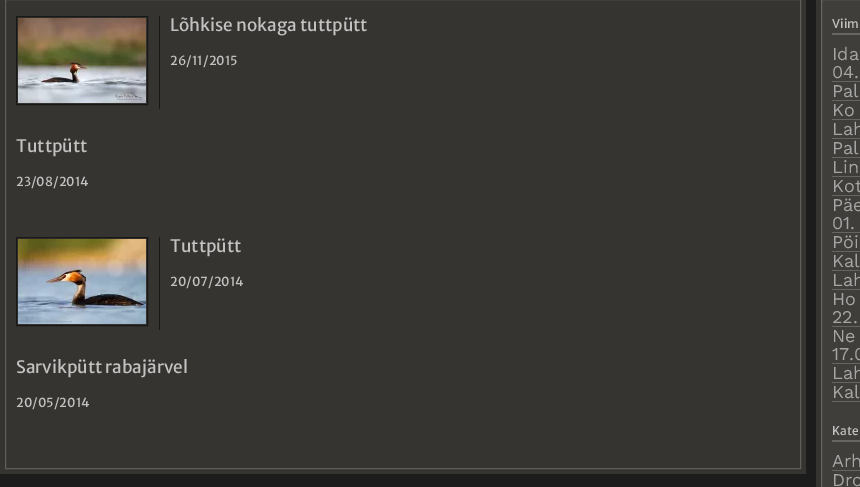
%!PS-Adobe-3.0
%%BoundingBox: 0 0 860 487
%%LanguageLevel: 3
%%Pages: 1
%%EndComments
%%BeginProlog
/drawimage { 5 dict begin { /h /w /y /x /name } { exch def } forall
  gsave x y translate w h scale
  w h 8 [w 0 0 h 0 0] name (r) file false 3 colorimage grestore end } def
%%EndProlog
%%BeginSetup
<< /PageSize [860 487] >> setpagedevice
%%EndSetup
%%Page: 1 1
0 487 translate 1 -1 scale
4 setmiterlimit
0.11 setgray
0 0 860 487 rectfill
0.208 0.204 0.188 setrgbcolor
0 0 806 474 rectfill
0.365 0.365 0.349 setrgbcolor
5.5 -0.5 795 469 rectstroke
0.094 setgray
159 16 1 93 rectfill
16.5 16.5 131 88 rectstroke
(images/1.raw) 18 18 128 85 drawimage
159 237 1 93 rectfill
16.5 237.5 131 88 rectstroke
(images/2.raw) 18 239 128 85 drawimage
0.208 0.204 0.188 setrgbcolor
816 0 5 487 rectfill
0.247 0.243 0.227 setrgbcolor
newpath 821.5 -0.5 moveto 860.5 -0.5 lineto 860.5 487.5 lineto 821.5 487.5 lineto closepath gsave fill grestore
0.396 0.396 0.38 setrgbcolor
stroke
832 33 28 2 rectfill
832 81 28 1 rectfill
832 100 28 1 rectfill
832 119 28 1 rectfill
832 138 28 1 rectfill
832 157 28 1 rectfill
832 176 28 1 rectfill
832 195 28 1 rectfill
832 232 28 1 rectfill
832 251 28 1 rectfill
832 270 28 1 rectfill
832 289 28 1 rectfill
832 326 28 1 rectfill
832 363 28 1 rectfill
832 382 28 1 rectfill
832 401 28 1 rectfill
832 440 28 2 rectfill
832 470 28 1 rectfill
/MerriweatherSans-Regular [17.2 0 0 -17.2 0 0] selectfont
0.761 setgray
170 31 moveto (Lõhkise nokaga tuttpütt) show
/MerriweatherSans-Regular [12.5 0 0 -12.5 0 0] selectfont
170 65 moveto (26/11/2015) show
/MerriweatherSans-Regular [17.2 0 0 -17.2 0 0] selectfont
16 152 moveto (Tuttpütt) show
/MerriweatherSans-Regular [12.5 0 0 -12.5 0 0] selectfont
16 186 moveto (23/08/2014) show
/MerriweatherSans-Regular [17.2 0 0 -17.2 0 0] selectfont
170 252 moveto (Tuttpütt) show
/MerriweatherSans-Regular [12.5 0 0 -12.5 0 0] selectfont
170 286 moveto (20/07/2014) show
/MerriweatherSans-Regular [17.2 0 0 -17.2 0 0] selectfont
16 373 moveto (Sarvikpütt rabajärvel) show
/MerriweatherSans-Regular [12.5 0 0 -12.5 0 0] selectfont
16 407 moveto (20/05/2014) show
/MerriweatherSans-Regular [12 0 0 -12 0 0] selectfont
832 28 moveto (Viim) show
/WorkSans-Regular [18 0 0 -18 0 0] selectfont
0.647 setgray
832 60 moveto (Ida) show
832 78 moveto (04.) show
832 97 moveto (Pal) show
832 116 moveto (Ko) show
832 135 moveto (Lah) show
832 154 moveto (Pal) show
832 173 moveto (Lin) show
832 192 moveto (Kot) show
832 211 moveto (Päe) show
832 229 moveto (01.) show
832 248 moveto (Pöi) show
832 267 moveto (Kal) show
832 286 moveto (Lah) show
832 305 moveto (Ho) show
832 323 moveto (22.) show
832 342 moveto (Ne) show
832 360 moveto (17.0) show
832 379 moveto (Lah) show
832 398 moveto (Kal) show
/MerriweatherSans-Regular [12 0 0 -12 0 0] selectfont
0.761 setgray
832 435 moveto (Kate) show
/WorkSans-Regular [18 0 0 -18 0 0] selectfont
0.647 setgray
832 467 moveto (Arh) show
832 486 moveto (Dro) show
showpage
%%EOF
